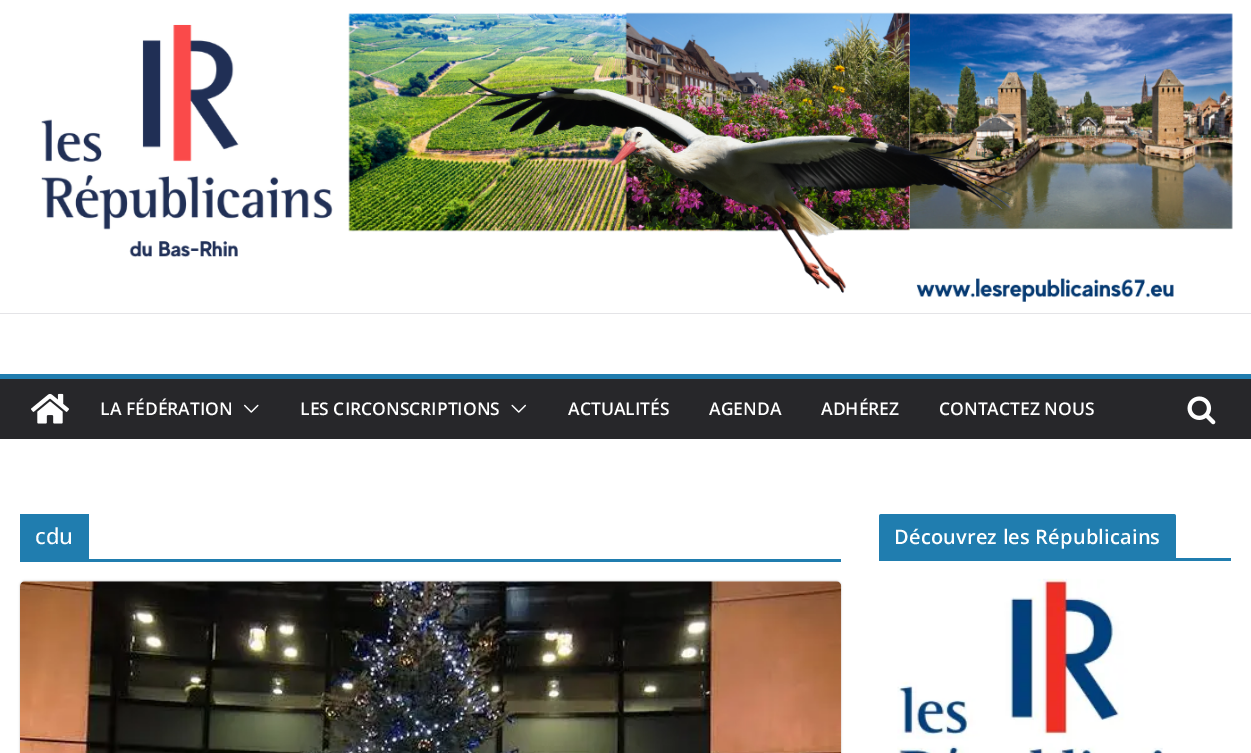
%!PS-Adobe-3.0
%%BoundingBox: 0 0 1251 753
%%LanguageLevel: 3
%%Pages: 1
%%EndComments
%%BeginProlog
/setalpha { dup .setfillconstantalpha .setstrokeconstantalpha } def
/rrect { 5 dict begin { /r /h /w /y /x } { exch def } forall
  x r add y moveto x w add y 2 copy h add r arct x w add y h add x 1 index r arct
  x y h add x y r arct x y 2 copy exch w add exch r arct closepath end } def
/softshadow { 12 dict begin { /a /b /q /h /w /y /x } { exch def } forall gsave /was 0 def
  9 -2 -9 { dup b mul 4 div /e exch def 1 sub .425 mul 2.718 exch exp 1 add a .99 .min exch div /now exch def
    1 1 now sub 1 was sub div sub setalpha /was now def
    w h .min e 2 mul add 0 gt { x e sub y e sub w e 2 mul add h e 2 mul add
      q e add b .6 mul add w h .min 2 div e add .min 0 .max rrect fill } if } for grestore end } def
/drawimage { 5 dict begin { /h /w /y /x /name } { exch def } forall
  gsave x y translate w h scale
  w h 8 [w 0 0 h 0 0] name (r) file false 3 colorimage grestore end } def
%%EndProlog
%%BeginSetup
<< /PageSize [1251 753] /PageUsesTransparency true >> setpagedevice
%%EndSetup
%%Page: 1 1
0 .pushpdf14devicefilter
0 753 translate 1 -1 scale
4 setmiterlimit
1 setgray
0 0 1251 753 rectfill
(images/1.raw) 41 12 1192 290 drawimage
0.894 0.894 0.906 setrgbcolor
0 313 1251 1 rectfill
0.153 0.153 0.165 setrgbcolor
0 379 1251 60 rectfill
0.125 0.49 0.686 setrgbcolor
0 374 1251 5 rectfill
(images/2.raw) 31 393 38 31 drawimage
(images/3.raw) 244 404 15 9 drawimage
(images/4.raw) 511 404 15 9 drawimage
(images/5.raw) 1187 396 29 29 drawimage
20 559 821 3 rectfill
20 514 69 45 rectfill
0 setgray
20 581 821 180 5 1 0.24 softshadow
(images/6.raw) 20 581 822 172 drawimage
0.125 0.49 0.686 setrgbcolor
879 558 352 3 rectfill
newpath 881.5 514 moveto 1173.5 514 lineto 1175 514 1176 515 1176 516.5 curveto 1176 558 lineto 879 558 lineto 879 516.5 lineto 879 515 880 514 881.5 514 curveto closepath fill
(images/7.raw) 897 578 266 175 drawimage
/OpenSans-SemiBold [17.5 0 0 -17.5 0 0] selectfont
1 setgray
100 415 moveto (LA FÉDÉRATION) show
300 415 moveto (LES CIRCONSCRIPTIONS) show
568 415 moveto (ACTUALITÉS) show
709 415 moveto (AGENDA) show
821 415 moveto (ADHÉREZ) show
939 415 moveto (CONTACTEZ NOUS) show
/OpenSans-Medium [22 0 0 -22 0 0] selectfont
35 544 moveto (cdu) show
/OpenSans-SemiBold [20 0 0 -20 0 0] selectfont
894 544 moveto 0.2 0 (Découvrez les Républicains) ashow
.poppdf14devicefilter showpage
%%EOF
